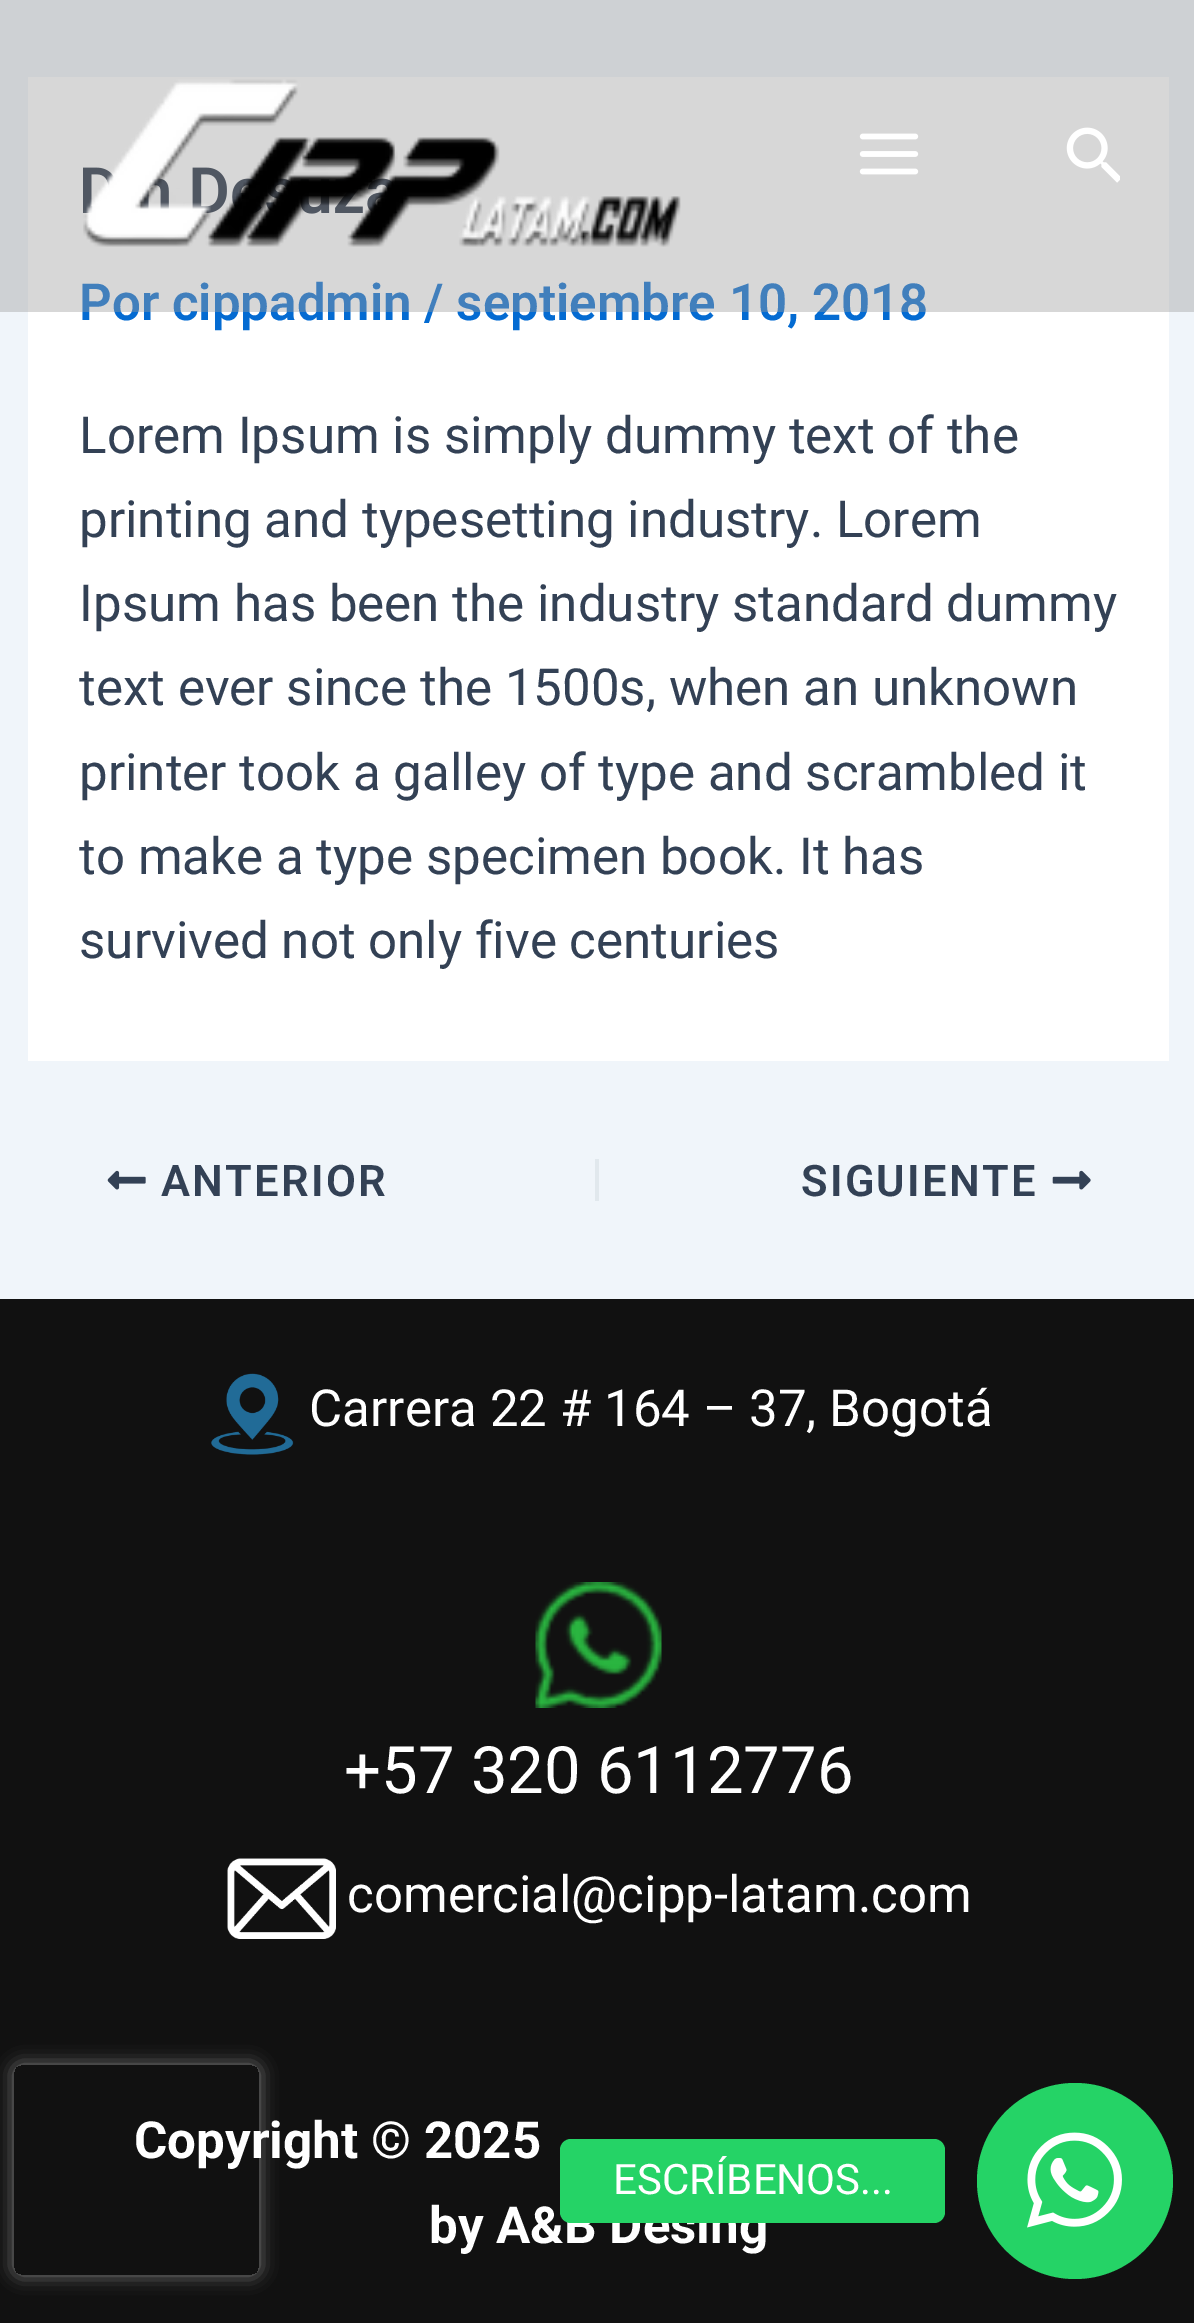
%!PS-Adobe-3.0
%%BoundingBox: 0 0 1194 2323
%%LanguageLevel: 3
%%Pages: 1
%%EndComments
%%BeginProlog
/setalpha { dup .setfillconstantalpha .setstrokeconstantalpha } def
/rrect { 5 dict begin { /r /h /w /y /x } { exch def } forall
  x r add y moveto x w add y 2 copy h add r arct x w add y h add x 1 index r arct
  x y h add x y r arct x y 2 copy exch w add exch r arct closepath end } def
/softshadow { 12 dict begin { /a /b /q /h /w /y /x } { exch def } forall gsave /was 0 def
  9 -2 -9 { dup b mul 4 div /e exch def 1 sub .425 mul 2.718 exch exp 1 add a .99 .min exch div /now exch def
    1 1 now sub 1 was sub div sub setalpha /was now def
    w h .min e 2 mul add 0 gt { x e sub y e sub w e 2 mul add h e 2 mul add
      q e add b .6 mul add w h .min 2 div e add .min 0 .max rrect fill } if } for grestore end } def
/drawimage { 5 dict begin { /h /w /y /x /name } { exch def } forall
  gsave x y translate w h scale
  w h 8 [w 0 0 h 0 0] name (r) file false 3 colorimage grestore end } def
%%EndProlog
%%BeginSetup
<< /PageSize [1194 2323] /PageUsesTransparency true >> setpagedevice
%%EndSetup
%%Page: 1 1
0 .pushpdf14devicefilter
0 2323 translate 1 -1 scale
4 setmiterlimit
0.941 0.961 0.98 setrgbcolor
0 0 1194 2323 rectfill
1 setgray
28 77 1141 984 rectfill
(images/4.raw) 107 1170 39 20 drawimage
0.882 0.91 0.929 setrgbcolor
595 1159 4 42 rectfill
(images/5.raw) 1052 1170 39 20 drawimage
0.067 setgray
0 1299 1194 1024 rectfill
(images/6.raw) 211 1373 83 82 drawimage
(images/7.raw) 535 1582 127 126 drawimage
(images/8.raw) 227 1858 109 81 drawimage
gsave
newpath 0 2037 moveto 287 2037 lineto 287 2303 lineto 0 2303 lineto closepath 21 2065 moveto 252 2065 lineto 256 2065 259 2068 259 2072 curveto 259 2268 lineto 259 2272 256 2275 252 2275 curveto 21 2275 lineto 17 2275 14 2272 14 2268 curveto 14 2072 lineto 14 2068 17 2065 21 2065 curveto closepath eoclip newpath
0.502 setgray
14 2065 245 210 7 9 1 softshadow
grestore
0.145 0.827 0.4 setrgbcolor
newpath 1075 2181 98 0 360 arc closepath fill
(images/9.raw) 1027 2132 95 96 drawimage
/Roboto-SemiBold [51.1 0 0 -51.1 0 0] selectfont
0.016 0.42 0.824 setrgbcolor
79 320 moveto (Por cippadmin / septiembre 10, 2018) show
0.4 setalpha
0.612 setgray
0 0 1194 312 rectfill
1 setalpha
(images/3.raw) 1066 127 54 56 drawimage
(images/2.raw) 859 133 60 42 drawimage
(images/1.raw) 83 79 598 168 drawimage
/Roboto-Regular [51.1 0 0 -51.1 0 0] selectfont
0.2 0.255 0.333 setrgbcolor
79 453 moveto (Lorem Ipsum is simply dummy text of the) show
79 537 moveto (printing and typesetting industry. Lorem) show
79 621 moveto (Ipsum has been the industry standard dummy) show
79 705 moveto (text ever since the 1500s, when an unknown) show
79 790 moveto (printer took a galley of type and scrambled it) show
79 874 moveto (to make a type specimen book. It has) show
79 958 moveto (survived not only five centuries) show
/Roboto-SemiBold [43.5 0 0 -43.5 0 0] selectfont
161 1196 moveto 2.25 0 (ANTERIOR) ashow
801 1196 moveto 2.25 0 (SIGUIENTE) ashow
/Roboto-Regular [51.1 0 0 -51.1 0 0] selectfont
1 setgray
309 1426 moveto (Carrera 22 # 164 – 37, Bogotá) show
/Roboto-Regular [65.25 0 0 -65.25 0 0] selectfont
344 1793 moveto (+57 320 6112776) show
/Roboto-Regular [51.1 0 0 -51.1 0 0] selectfont
347 1912 moveto (comercial@cipp-latam.com) show
/Roboto-Bold [51.1 0 0 -51.1 0 0] selectfont
134 2158 moveto (Copyright © 2025) show
429 2243 moveto (by A&B Desing) show
0.145 0.827 0.4 setrgbcolor
560 2139 385 84 11 rrect fill
/Roboto-Regular [42 0 0 -42 0 0] selectfont
1 setgray
613 2194 moveto (ESCRÍBENOS...) show
.poppdf14devicefilter showpage
%%EOF
